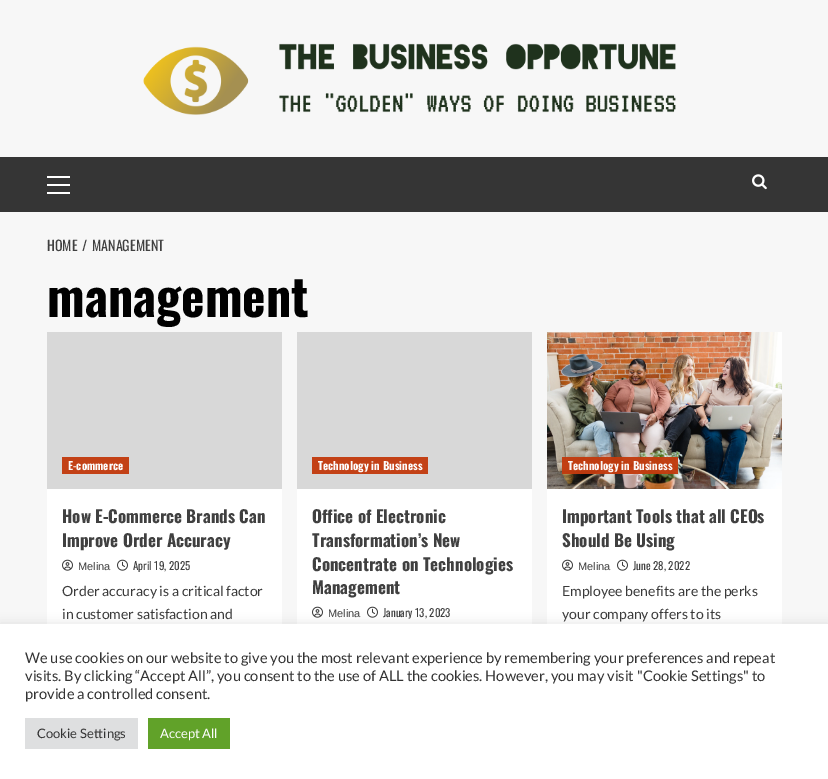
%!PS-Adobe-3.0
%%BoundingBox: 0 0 828 779
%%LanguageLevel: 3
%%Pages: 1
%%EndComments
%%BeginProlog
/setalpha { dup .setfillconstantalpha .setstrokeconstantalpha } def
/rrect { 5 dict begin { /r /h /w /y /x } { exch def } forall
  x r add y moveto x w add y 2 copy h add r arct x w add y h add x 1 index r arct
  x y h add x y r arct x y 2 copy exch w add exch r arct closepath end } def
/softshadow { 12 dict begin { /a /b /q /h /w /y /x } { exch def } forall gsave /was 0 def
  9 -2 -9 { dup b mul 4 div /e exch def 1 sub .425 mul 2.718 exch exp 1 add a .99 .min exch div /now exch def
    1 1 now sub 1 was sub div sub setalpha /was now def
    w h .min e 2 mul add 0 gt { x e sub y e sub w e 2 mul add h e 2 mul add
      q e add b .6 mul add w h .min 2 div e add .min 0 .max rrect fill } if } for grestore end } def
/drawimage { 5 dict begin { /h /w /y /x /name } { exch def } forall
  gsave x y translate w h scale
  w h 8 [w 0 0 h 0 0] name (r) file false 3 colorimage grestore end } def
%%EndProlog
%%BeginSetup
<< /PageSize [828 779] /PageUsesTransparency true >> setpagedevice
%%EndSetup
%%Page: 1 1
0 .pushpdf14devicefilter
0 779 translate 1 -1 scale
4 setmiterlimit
0.969 setgray
0 0 828 779 rectfill
(images/1.raw) 143 43 533 72 drawimage
0.208 setgray
0 157 828 55 rectfill
1 setgray
47 184 23 2 rectfill
47 176 23 2 rectfill
47 192 23 2 rectfill
(images/2.raw) 752 174 15 16 drawimage
47 489 235 135 rectfill
0.847 setgray
47 332 235 157 rectfill
0.765 0.255 0.086 setrgbcolor
62 457 67 17 rectfill
(images/3.raw) 62 559 11 12 drawimage
(images/4.raw) 117 559 11 12 drawimage
1 setgray
297 489 235 135 rectfill
0.847 setgray
297 332 235 157 rectfill
0.765 0.255 0.086 setrgbcolor
312 457 116 17 rectfill
(images/3.raw) 312 606 11 12 drawimage
(images/4.raw) 367 606 11 12 drawimage
1 setgray
547 489 235 135 rectfill
(images/5.raw) 547 332 235 157 drawimage
0.96 setalpha
0.761 0.231 0.055 setrgbcolor
562 457 116 17 rectfill
1 setalpha
(images/3.raw) 562 559 11 12 drawimage
(images/4.raw) 617 559 11 12 drawimage
0.675 0.671 0.671 setrgbcolor
0 623 828 155 0 5 0.3 softshadow
1 setgray
0 624 828 155 rectfill
0.871 0.875 0.878 setrgbcolor
25 718 113 31 rectfill
0.38 0.635 0.161 setrgbcolor
148 718 82 31 rectfill
/Oswald-Regular [14 0 0 -14 0 0] selectfont
0.251 setgray
47 251 moveto (HOME) show
82 251 moveto (/) show
92 251 moveto (MANAGEMENT) show
/Oswald-Bold [50 0 0 -50 0 0] selectfont
0 setgray
47 317 moveto (management) show
/Oswald-Bold [11 0 0 -11 0 0] selectfont
0.992 setgray
68 470 moveto (E-commerce) show
/Oswald-Bold [17 0 0 -17 0 0] selectfont
0.251 setgray
62 523 moveto (How E-Commerce Brands Can) show
62 547 moveto (Improve Order Accuracy) show
/LiberationSans-Regular [11 0 0 -11 0 0] selectfont
78 570 moveto (Melina) show
/Oswald-Regular [11 0 0 -11 0 0] selectfont
133 570 moveto (April 19, 2025) show
/Lato-Regular [14 0 0 -14 0 0] selectfont
0.227 setgray
62 596 moveto (Order accuracy is a critical factor) show
62 619 moveto (in customer satisfaction and) show
/Oswald-Bold [11 0 0 -11 0 0] selectfont
0.992 setgray
318 470 moveto (Technology in Business) show
/Oswald-Bold [17 0 0 -17 0 0] selectfont
0.251 setgray
312 523 moveto (Office of Electronic) show
312 547 moveto (Transformation’s New) show
312 571 moveto (Concentrate on Technologies) show
312 594 moveto (Management) show
/LiberationSans-Regular [11 0 0 -11 0 0] selectfont
328 617 moveto (Melina) show
/Oswald-Regular [11 0 0 -11 0 0] selectfont
383 617 moveto (January 13, 2023) show
/Oswald-Bold [11 0 0 -11 0 0] selectfont
0.988 0.969 0.965 setrgbcolor
568 470 moveto (Technology in Business) show
/Oswald-Bold [17 0 0 -17 0 0] selectfont
0.251 setgray
562 523 moveto (Important Tools that all CEOs) show
562 547 moveto (Should Be Using) show
/LiberationSans-Regular [11 0 0 -11 0 0] selectfont
578 570 moveto (Melina) show
/Oswald-Regular [11 0 0 -11 0 0] selectfont
633 570 moveto (June 28, 2022) show
/Lato-Regular [14 0 0 -14 0 0] selectfont
0.227 setgray
562 596 moveto (Employee benefits are the perks) show
562 619 moveto (your company offers to its) show
/Lato-Regular [14.67 0 0 -14.67 0 0] selectfont
0.2 setgray
25 663 moveto (We use cookies on our website to give you the most relevant experience by remembering your preferences and repeat) show
25 681 moveto (visits. By clicking “Accept All”, you consent to the use of ALL the cookies. However, you may visit "Cookie Settings" to) show
25 699 moveto (provide a controlled consent.) show
/Lato-Regular [13 0 0 -13 0 0] selectfont
37 738 moveto (Cookie Settings) show
0.992 setgray
160 738 moveto (Accept All) show
.poppdf14devicefilter showpage
%%EOF
